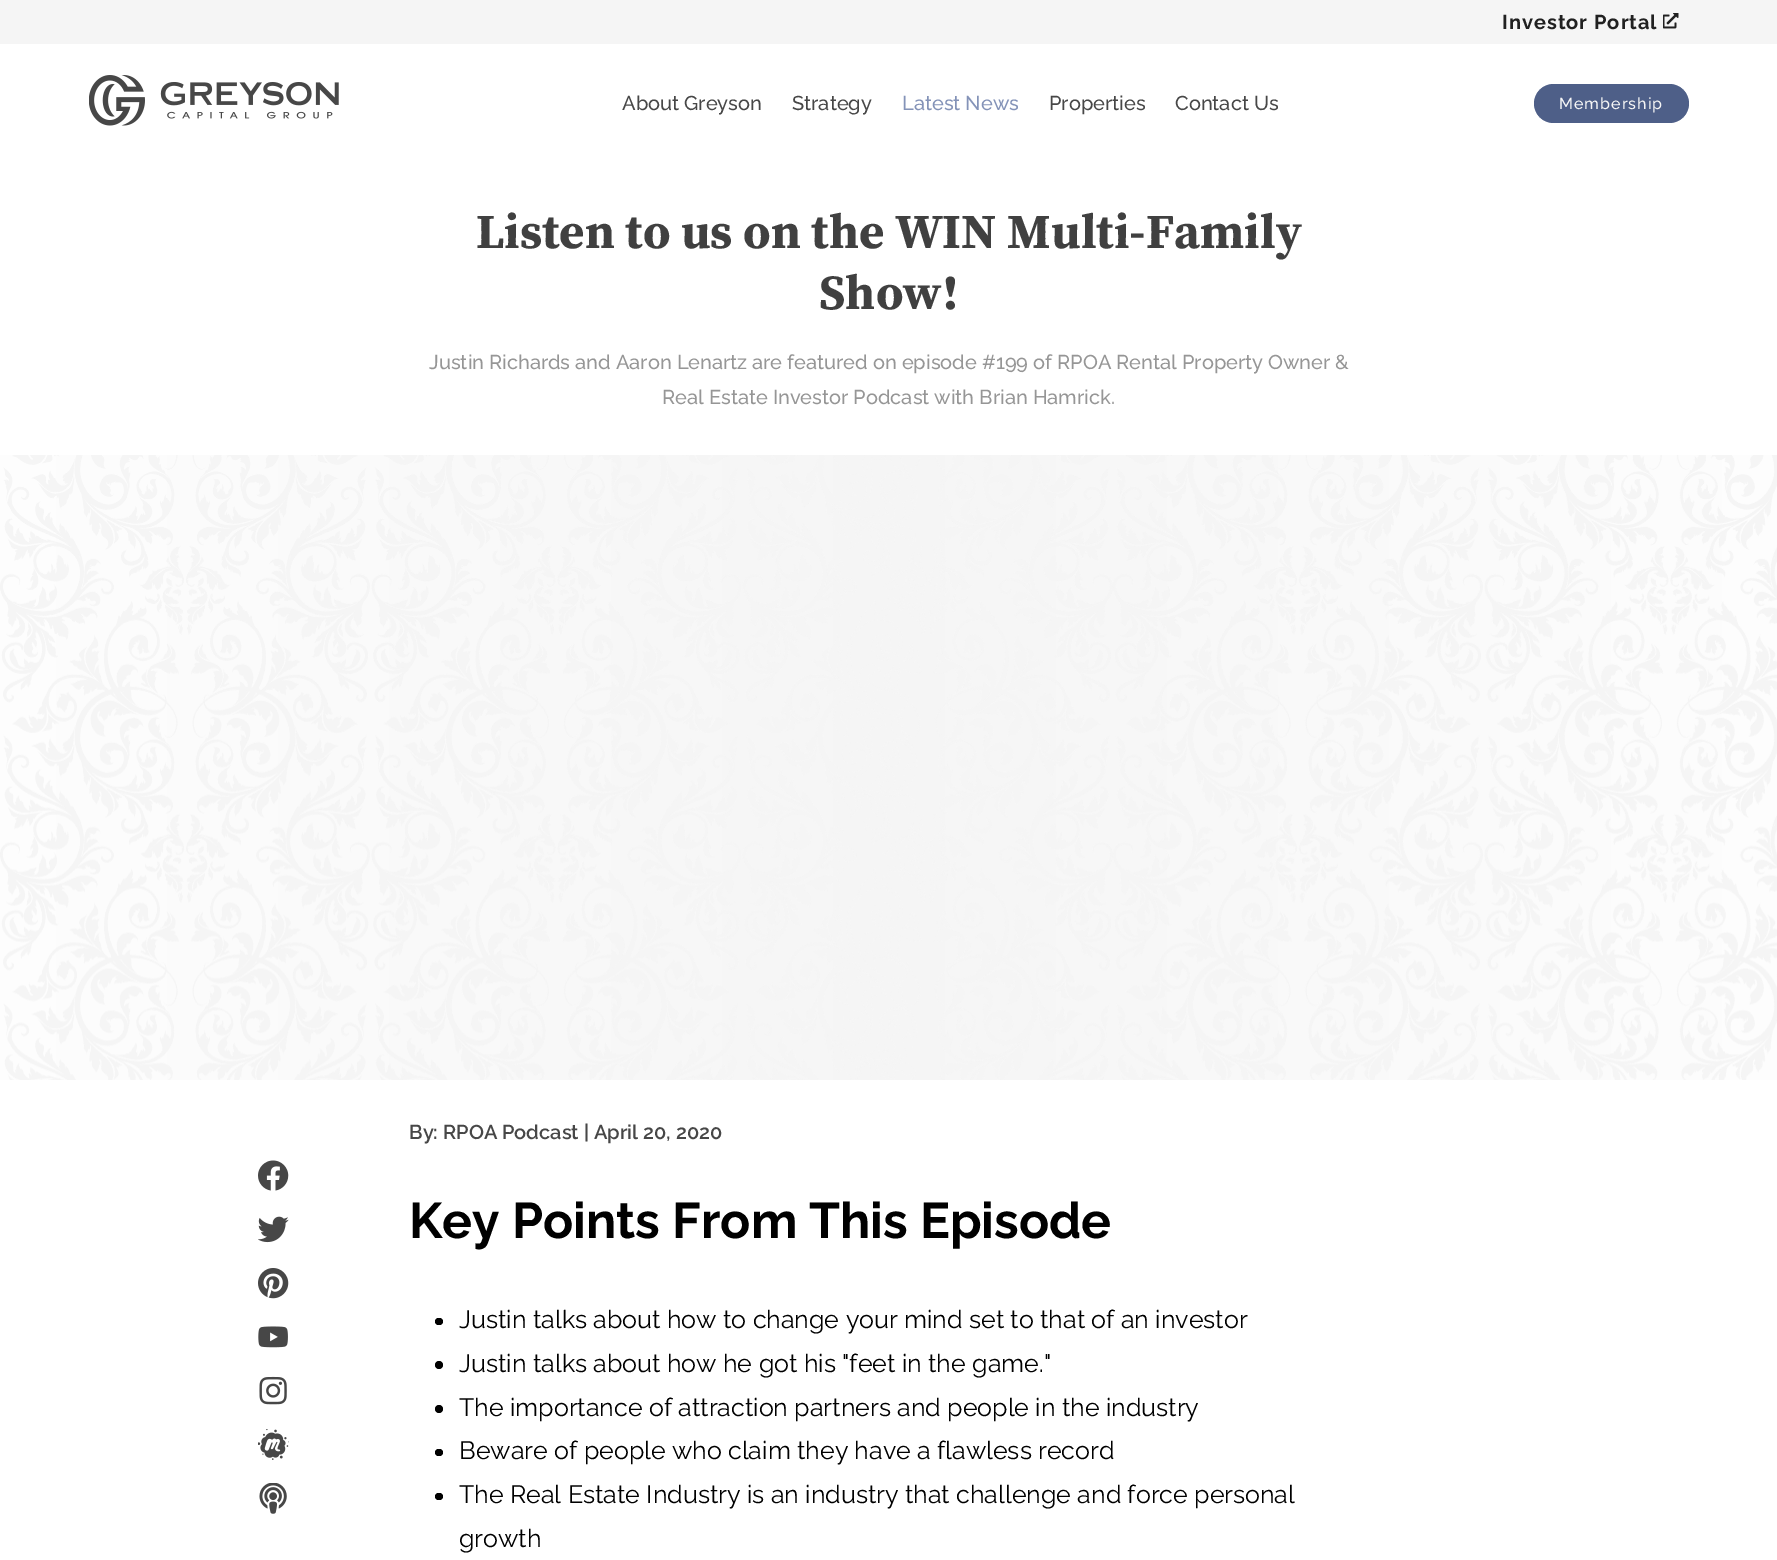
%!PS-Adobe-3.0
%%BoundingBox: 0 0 1777 1560
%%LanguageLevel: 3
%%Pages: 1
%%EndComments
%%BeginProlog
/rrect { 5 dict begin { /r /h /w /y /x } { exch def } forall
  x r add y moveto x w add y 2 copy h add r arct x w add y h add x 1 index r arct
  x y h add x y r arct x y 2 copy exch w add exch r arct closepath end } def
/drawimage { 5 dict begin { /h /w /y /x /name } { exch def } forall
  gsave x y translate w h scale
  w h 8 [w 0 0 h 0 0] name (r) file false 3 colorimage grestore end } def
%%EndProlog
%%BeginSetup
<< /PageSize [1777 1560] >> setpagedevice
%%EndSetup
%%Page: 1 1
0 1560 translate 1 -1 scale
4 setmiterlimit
1 setgray
0 0 1777 1560 rectfill
0.961 setgray
0 0 1777 44 rectfill
(images/1.raw) 1663 13 16 16 drawimage
(images/2.raw) 89 75 250 51 drawimage
0.306 0.373 0.533 setrgbcolor
1534 84 155 39 19.5 rrect fill
gsave newpath 56 455 moveto 1722 455 lineto 1722 1080 lineto 56 1080 lineto closepath clip newpath
<< /ShadingType 2 /ColorSpace /DeviceRGB /Coords [0 768 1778 768] /Extend [true true] /Function << /FunctionType 3 /Domain [0 1] /Functions [<< /FunctionType 2 /Domain [0 1] /C0 [0.992 0.992 0.992] /C1 [0.961 0.961 0.961] /N 1 >> << /FunctionType 2 /Domain [0 1] /C0 [0.961 0.961 0.961] /C1 [0.992 0.992 0.992] /N 1 >>] /Bounds [0.5] /Encode [0 1 0 1] >> >> shfill grestore
(images/3.raw) 0 455 1777 625 drawimage
(images/4.raw) 258 1160 31 31 drawimage
(images/5.raw) 258 1216 31 27 drawimage
(images/6.raw) 258 1268 31 31 drawimage
(images/7.raw) 258 1326 30 22 drawimage
(images/8.raw) 259 1376 28 29 drawimage
(images/9.raw) 258 1429 31 31 drawimage
(images/10.raw) 259 1483 28 31 drawimage
0 setgray
435 1318 8 7 3.5 rrect fill
newpath 439 1365 4 0 360 arc closepath fill
newpath 439 1409 4 0 360 arc closepath fill
435 1449 8 7 3.5 rrect fill
435 1493 8 7 3.5 rrect fill
/Raleway-Bold [20 0 0 -20 0 0] selectfont
0.129 setgray
1502 29 moveto 1 0 (Investor Portal) ashow
/Raleway-Medium [20 0 0 -20 0 0] selectfont
0.278 setgray
622 110 moveto (About Greyson) show
792 110 moveto (Strategy) show
0.518 0.576 0.722 setrgbcolor
902 110 moveto (Latest News) show
0.278 setgray
1049 110 moveto (Properties) show
1175 110 moveto (Contact Us) show
/Raleway-Medium [16 0 0 -16 0 0] selectfont
0.961 setgray
1559 109 moveto 1 0 (Membership) ashow
/SourceSerifPro-Bold [48.8 0 0 -48.8 0 0] selectfont
0.251 setgray
476 248 moveto (Listen to us on the WIN Multi-Family) show
819 309 moveto (Show!) show
/Raleway-Medium [20 0 0 -20 0 0] selectfont
0.588 setgray
429 369 moveto (Justin Richards and Aaron Lenartz are featured on episode #199 of RPOA Rental Property Owner &) show
662 404 moveto (Real Estate Investor Podcast with Brian Hamrick.) show
/Raleway-SemiBold [20 0 0 -20 0 0] selectfont
0.278 setgray
409 1139 moveto (By: RPOA Podcast | April 20, 2020) show
/Raleway-Bold [50 0 0 -50 0 0] selectfont
0 setgray
409 1238 moveto (Key Points From This Episode) show
/Raleway-Regular [25 0 0 -25 0 0] selectfont
459 1328 moveto (Justin talks about how to change your mind set to that of an investor) show
459 1372 moveto (Justin talks about how he got his "feet in the game.") show
459 1416 moveto (The importance of attraction partners and people in the industry) show
459 1459 moveto (Beware of people who claim they have a flawless record) show
459 1503 moveto (The Real Estate Industry is an industry that challenge and force personal) show
459 1547 moveto (growth) show
showpage
%%EOF
